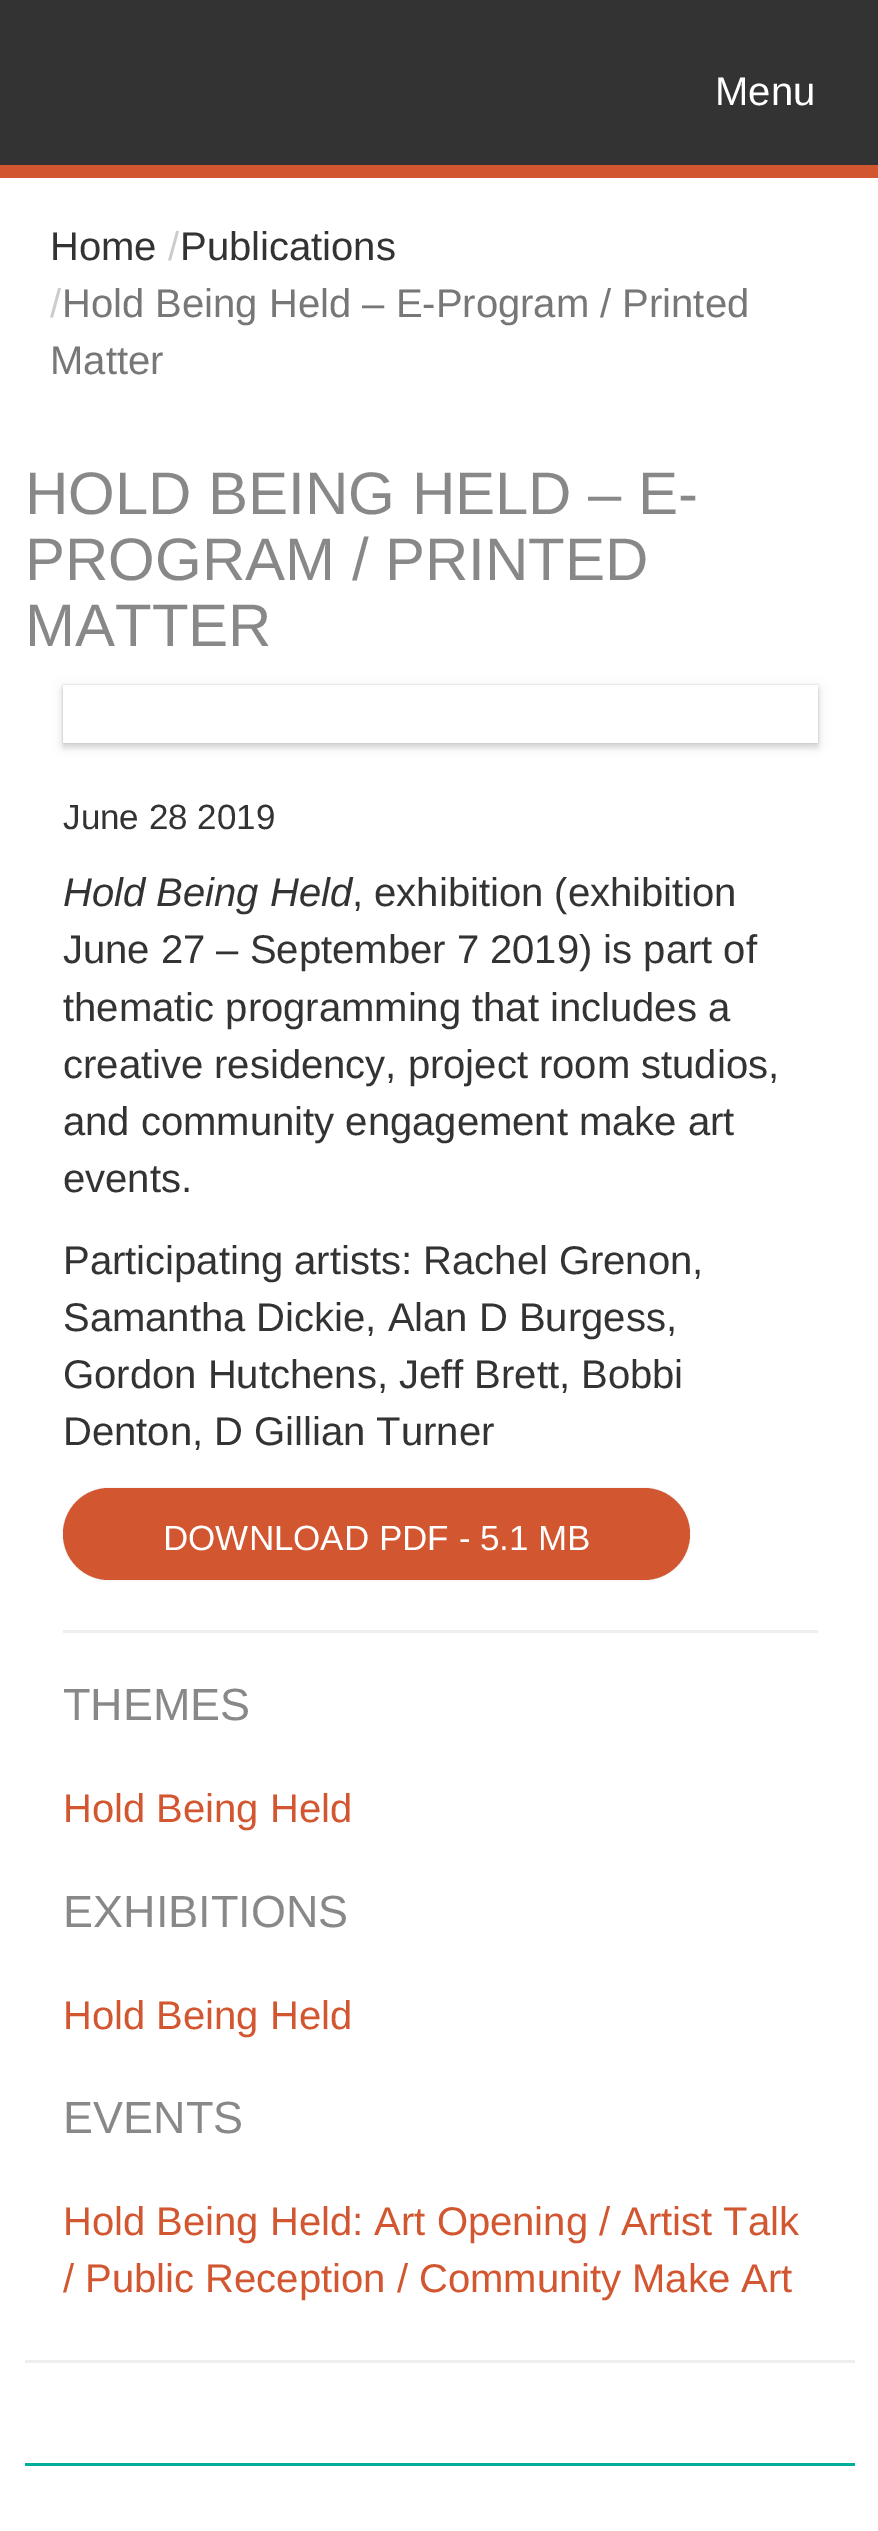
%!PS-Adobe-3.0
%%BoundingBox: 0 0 878 2531
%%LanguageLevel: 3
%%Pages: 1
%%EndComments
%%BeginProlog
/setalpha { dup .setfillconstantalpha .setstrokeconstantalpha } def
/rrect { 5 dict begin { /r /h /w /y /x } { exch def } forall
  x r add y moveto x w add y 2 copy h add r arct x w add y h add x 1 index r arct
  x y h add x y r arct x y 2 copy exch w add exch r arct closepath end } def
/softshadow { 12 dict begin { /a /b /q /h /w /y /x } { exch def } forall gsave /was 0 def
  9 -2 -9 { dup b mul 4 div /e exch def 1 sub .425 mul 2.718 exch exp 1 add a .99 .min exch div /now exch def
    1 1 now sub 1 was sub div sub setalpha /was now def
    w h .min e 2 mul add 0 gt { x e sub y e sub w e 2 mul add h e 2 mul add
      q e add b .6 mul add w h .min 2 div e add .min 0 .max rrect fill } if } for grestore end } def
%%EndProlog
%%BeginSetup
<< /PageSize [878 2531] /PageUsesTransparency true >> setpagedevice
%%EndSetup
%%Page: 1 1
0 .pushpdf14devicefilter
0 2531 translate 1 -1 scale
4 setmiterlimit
1 setgray
0 0 878 2531 rectfill
0.2 setgray
0 0 878 165 rectfill
0.824 0.337 0.188 setrgbcolor
0 165 878 13 rectfill
gsave
newpath 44 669 moveto 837 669 lineto 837 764 lineto 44 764 lineto closepath 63 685 moveto 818 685 lineto 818 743 lineto 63 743 lineto closepath eoclip newpath
0 setgray
63 688 755 57 0 6 0.1 softshadow
grestore
gsave
newpath 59 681 moveto 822 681 lineto 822 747 lineto 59 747 lineto closepath 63 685 moveto 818 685 lineto 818 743 lineto 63 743 lineto closepath eoclip newpath
0 setgray
63 685 755 58 0 1 0.15 softshadow
grestore
gsave
newpath 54 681 moveto 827 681 lineto 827 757 lineto 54 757 lineto closepath 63 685 moveto 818 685 lineto 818 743 lineto 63 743 lineto closepath eoclip newpath
0 setgray
63 690 755 58 0 2.5 0.1 softshadow
grestore
0 setgray
63 1488 627 92 46 1 0.1 softshadow
0.824 0.337 0.188 setrgbcolor
63 1488 627 92 46 rrect fill
0.933 setgray
63 1630 755 3 rectfill
25 2360 830 3 rectfill
0 0.682 0.616 setrgbcolor
25 2463 830 3 rectfill
/LiberationSans-Regular [40 0 0 -40 0 0] selectfont
1 setgray
715 105 moveto (Menu) show
0.2 setgray
50 260 moveto (Home) show
0.8 setgray
168 260 moveto (/) show
0.2 setgray
180 260 moveto (Publications) show
0.8 setgray
50 317 moveto (/) show
0.467 setgray
62 317 moveto (Hold Being Held – E-Program / Printed) show
50 374 moveto (Matter) show
/LiberationSans-Regular [60 0 0 -60 0 0] selectfont
0.533 setgray
25 514 moveto (HOLD BEING HELD – E-) show
25 580 moveto (PROGRAM / PRINTED) show
25 646 moveto (MATTER) show
/LiberationSans-Regular [35 0 0 -35 0 0] selectfont
0.2 setgray
63 829 moveto (June 28 2019) show
/LiberationSans-Italic [40 0 0 -40 0 0] selectfont
63 906 moveto (Hold Being Held) show
/LiberationSans-Regular [40 0 0 -40 0 0] selectfont
352 906 moveto (, exhibition \(exhibition) show
63 963 moveto (June 27 – September 7 2019\) is part of) show
63 1021 moveto (thematic programming that includes a) show
63 1078 moveto (creative residency, project room studios,) show
63 1135 moveto (and community engagement make art) show
63 1192 moveto (events.) show
63 1274 moveto (Participating artists: Rachel Grenon,) show
63 1331 moveto (Samantha Dickie, Alan D Burgess,) show
63 1388 moveto (Gordon Hutchens, Jeff Brett, Bobbi) show
63 1445 moveto (Denton, D Gillian Turner) show
/LiberationSans-Regular [35 0 0 -35 0 0] selectfont
1 setgray
163 1550 moveto (DOWNLOAD PDF - 5.1 MB) show
/LiberationSans-Regular [45 0 0 -45 0 0] selectfont
0.533 setgray
63 1720 moveto (THEMES) show
/LiberationSans-Regular [40 0 0 -40 0 0] selectfont
0.824 0.337 0.188 setrgbcolor
63 1822 moveto (Hold Being Held) show
/LiberationSans-Regular [45 0 0 -45 0 0] selectfont
0.533 setgray
63 1927 moveto (EXHIBITIONS) show
/LiberationSans-Regular [40 0 0 -40 0 0] selectfont
0.824 0.337 0.188 setrgbcolor
63 2029 moveto (Hold Being Held) show
/LiberationSans-Regular [45 0 0 -45 0 0] selectfont
0.533 setgray
63 2133 moveto (EVENTS) show
/LiberationSans-Regular [40 0 0 -40 0 0] selectfont
0.824 0.337 0.188 setrgbcolor
63 2235 moveto (Hold Being Held: Art Opening / Artist Talk) show
63 2292 moveto (/ Public Reception / Community Make Art) show
.poppdf14devicefilter showpage
%%EOF
